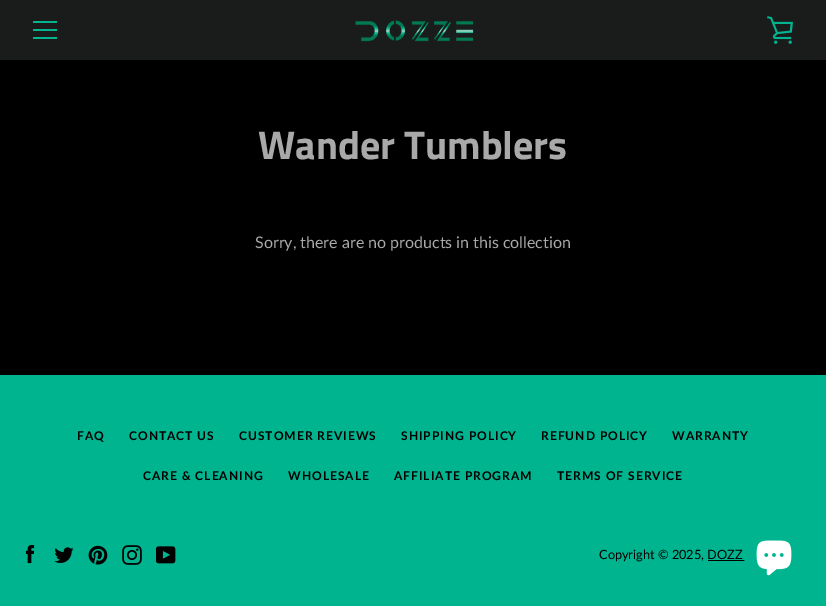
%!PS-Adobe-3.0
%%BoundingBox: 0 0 826 606
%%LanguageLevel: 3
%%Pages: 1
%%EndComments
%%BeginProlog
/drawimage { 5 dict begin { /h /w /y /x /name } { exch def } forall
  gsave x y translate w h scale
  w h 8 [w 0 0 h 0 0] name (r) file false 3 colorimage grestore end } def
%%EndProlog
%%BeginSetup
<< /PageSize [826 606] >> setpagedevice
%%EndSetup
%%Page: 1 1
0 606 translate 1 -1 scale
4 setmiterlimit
0 0.706 0.565 setrgbcolor
0 0 826 606 rectfill
0 setgray
0 60 826 315 rectfill
0.098 0.11 0.106 setrgbcolor
0 0 826 60 rectfill
0 0.706 0.565 setrgbcolor
33 21 24 2 rectfill
33 29 24 2 rectfill
33 37 24 2 rectfill
(images/1.raw) 355 20 119 22 drawimage
(images/2.raw) 767 16 26 28 drawimage
(images/3.raw) 25 545 10 19 drawimage
(images/4.raw) 54 547 20 16 drawimage
(images/5.raw) 88 545 20 20 drawimage
(images/6.raw) 122 545 20 20 drawimage
(images/7.raw) 156 546 20 18 drawimage
0 setgray
708 560 43 1 rectfill
0 0.706 0.565 setrgbcolor
newpath 774 555 30 0 360 arc closepath fill
(images/8.raw) 756 540 36 36 drawimage
/TitilliumWeb-Bold [40 0 0 -40 0 0] selectfont
0.663 setgray
258 159 moveto (Wander Tumblers) show
/Lato-Regular [16 0 0 -16 0 0] selectfont
255 248 moveto (Sorry, there are no products in this collection) show
/Lato-Bold [12 0 0 -12 0 0] selectfont
0 setgray
77 440 moveto 1 0 (FAQ) ashow
129 440 moveto 1 0 (CONTACT US) ashow
239 440 moveto 1 0 (CUSTOMER REVIEWS) ashow
401 440 moveto 1 0 (SHIPPING POLICY) ashow
541 440 moveto 1 0 (REFUND POLICY) ashow
672 440 moveto 1 0 (WARRANTY) ashow
143 480 moveto 1 0 (CARE & CLEANING) ashow
288 480 moveto 1 0 (WHOLESALE) ashow
394 480 moveto 1 0 (AFFILIATE PROGRAM) ashow
557 480 moveto 1 0 (TERMS OF SERVICE) ashow
/Lato-Regular [12.75 0 0 -12.75 0 0] selectfont
599 559 moveto (Copyright © 2025, DOZZ) show
showpage
%%EOF
